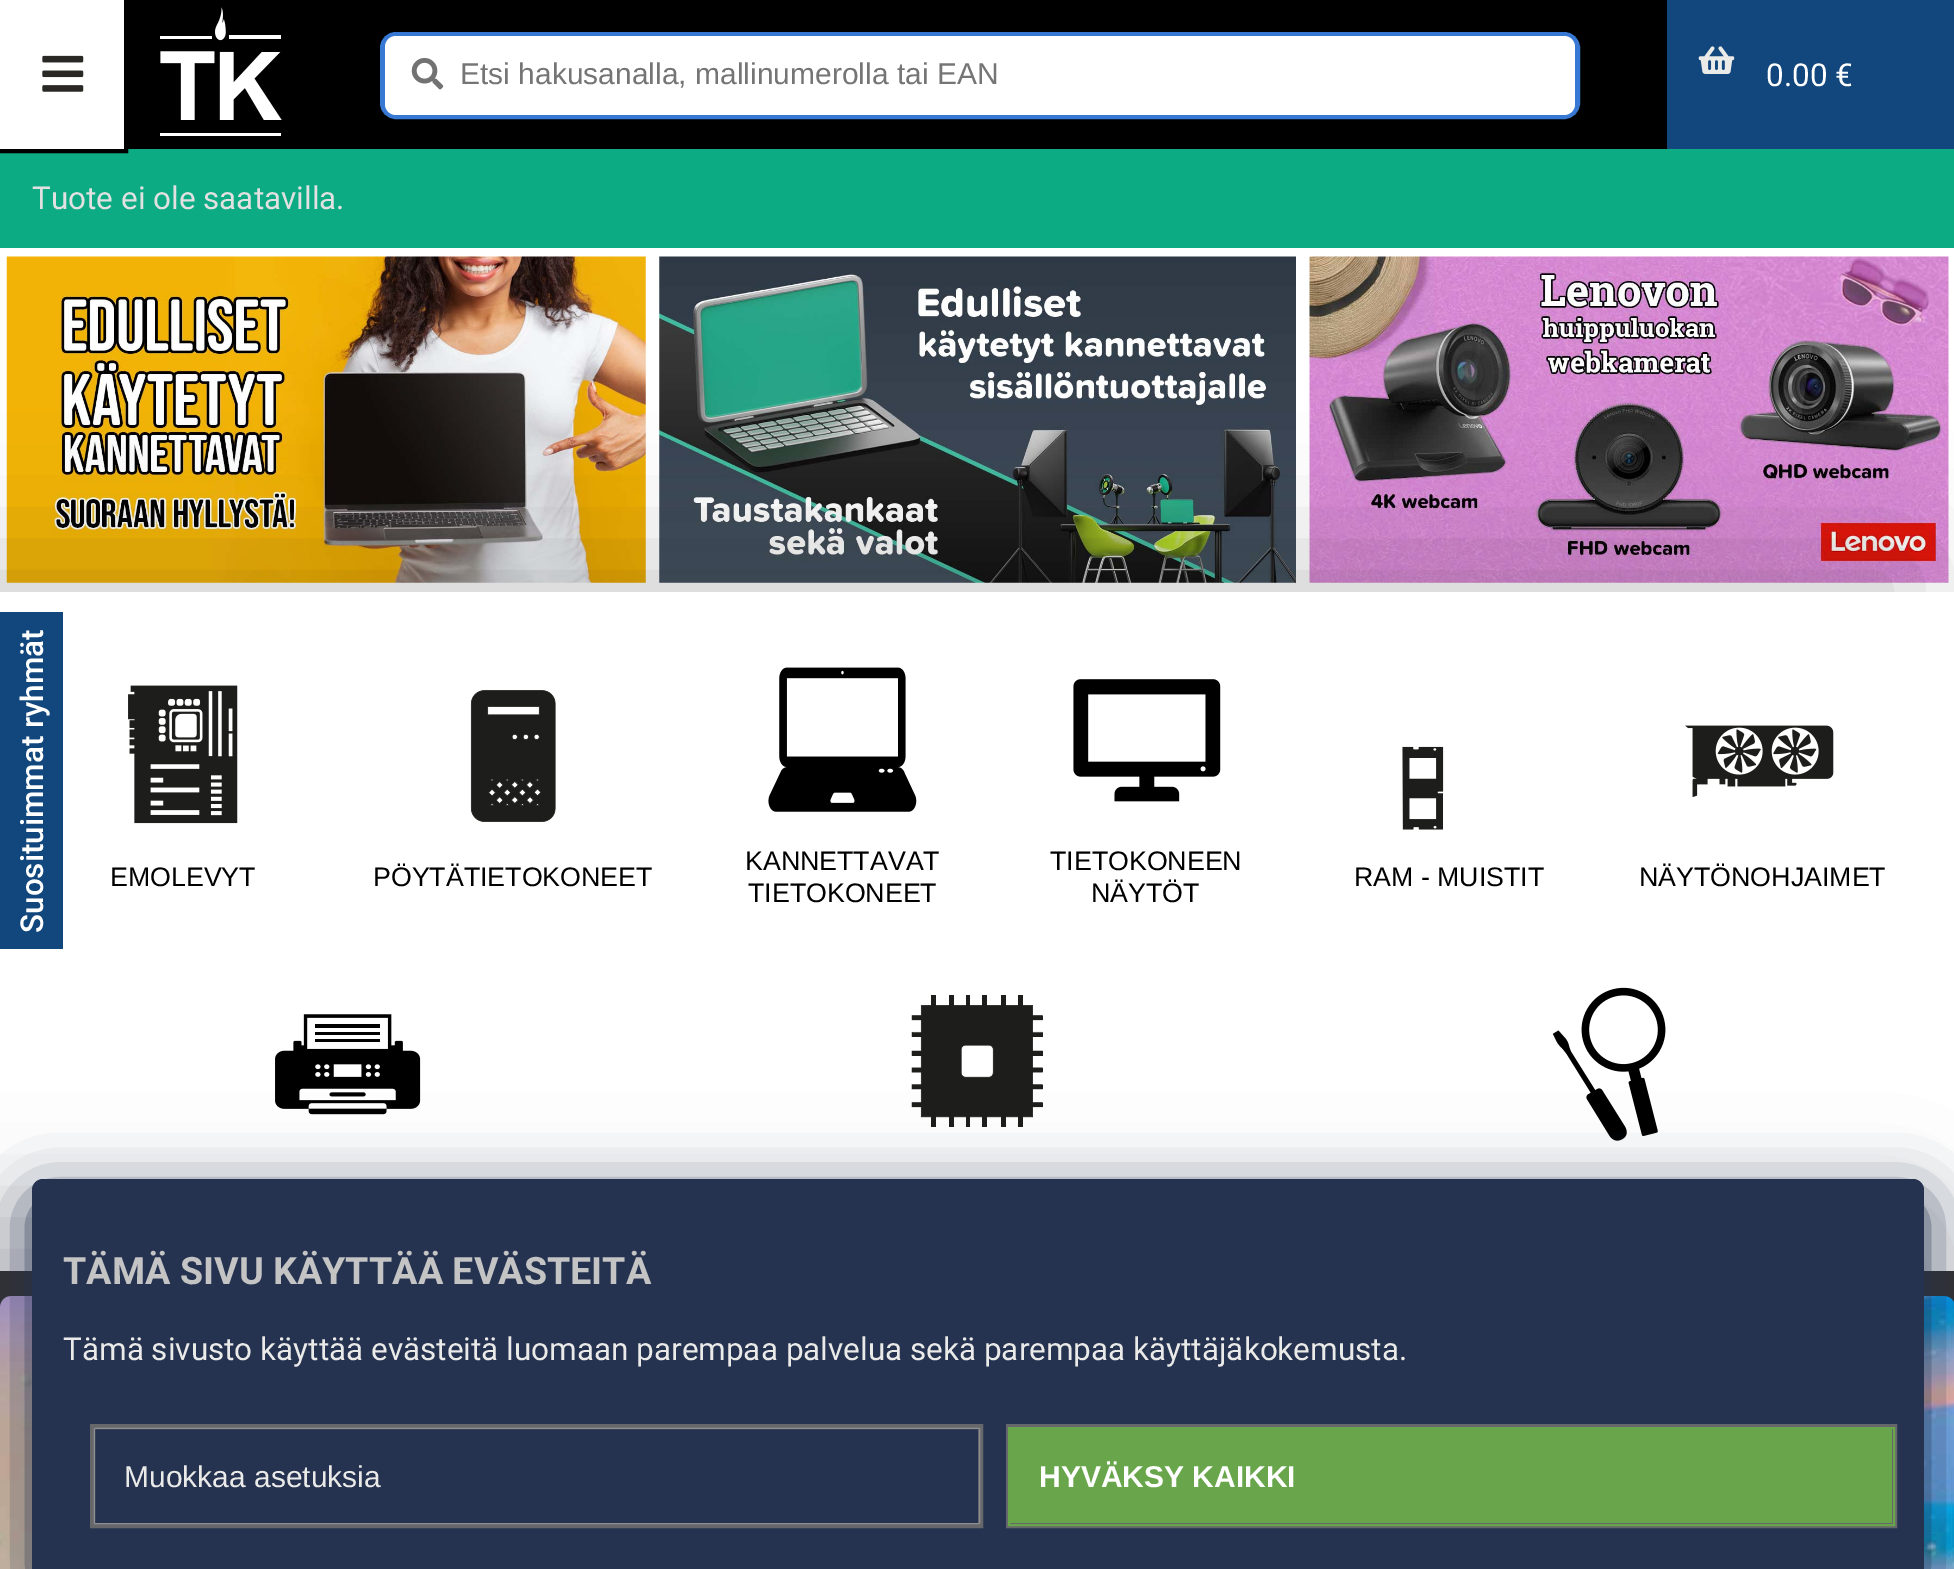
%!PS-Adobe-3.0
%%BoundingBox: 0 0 1954 1569
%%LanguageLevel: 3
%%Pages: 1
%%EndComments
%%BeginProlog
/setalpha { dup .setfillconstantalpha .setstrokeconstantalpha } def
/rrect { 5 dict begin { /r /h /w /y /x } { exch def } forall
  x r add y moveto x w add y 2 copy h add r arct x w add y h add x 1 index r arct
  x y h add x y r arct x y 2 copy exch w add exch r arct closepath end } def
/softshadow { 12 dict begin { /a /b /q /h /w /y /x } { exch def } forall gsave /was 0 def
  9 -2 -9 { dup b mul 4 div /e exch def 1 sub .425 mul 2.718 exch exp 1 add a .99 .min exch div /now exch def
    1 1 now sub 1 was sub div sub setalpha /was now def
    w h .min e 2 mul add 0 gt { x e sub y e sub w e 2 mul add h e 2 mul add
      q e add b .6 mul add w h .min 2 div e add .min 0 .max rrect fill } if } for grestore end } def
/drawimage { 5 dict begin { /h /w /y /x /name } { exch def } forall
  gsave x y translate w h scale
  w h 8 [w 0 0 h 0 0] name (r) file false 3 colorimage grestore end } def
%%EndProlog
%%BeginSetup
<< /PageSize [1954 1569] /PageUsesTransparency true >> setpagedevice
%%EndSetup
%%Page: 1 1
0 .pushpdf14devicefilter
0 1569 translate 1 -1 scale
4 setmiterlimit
0 setgray
0 0 1954 1569 rectfill
0.051 0.671 0.518 setrgbcolor
0 149 1954 99 rectfill
0 setgray
5 setlinewidth
-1.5 -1.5 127 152 rectstroke
1 setgray
0 0 124 149 rectfill
(images/1.raw) 42 55 42 37 drawimage
(images/2.raw) 160 7 122 129 drawimage
0.216 0.471 0.831 setrgbcolor
382.5 34.5 1195 82 13.5 rrect stroke
1 setgray
385 36 1190 79 11 rrect fill
(images/3.raw) 411 57 33 33 drawimage
0.071 0.278 0.49 setrgbcolor
1667 0 287 149 rectfill
(images/4.raw) 1698 46 37 28 drawimage
1 setgray
0 248 1954 344 rectfill
(images/5.raw) 6 256 640 327 drawimage
(images/6.raw) 659 256 637 327 drawimage
(images/7.raw) 1309 256 640 327 drawimage
0.09 0.082 0.082 setrgbcolor
-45 554 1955 679 0 63 0.2 softshadow
1 setgray
0 592 1954 679 rectfill
0.071 0.278 0.49 setrgbcolor
0 612 63 337 rectfill
(images/8.raw) 128 685 110 139 drawimage
(images/9.raw) 470 690 86 132 drawimage
(images/10.raw) 768 667 149 145 drawimage
(images/11.raw) 1073 679 148 123 drawimage
(images/12.raw) 1402 746 42 84 drawimage
(images/13.raw) 1685 725 149 72 drawimage
(images/14.raw) 275 1014 146 101 drawimage
(images/15.raw) 911 995 132 132 drawimage
(images/16.raw) 1552 987 114 154 drawimage
0.09 0.082 0.082 setrgbcolor
-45 1233 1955 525 0 63 0.2 softshadow
0.192 setgray
0 1271 1954 36 rectfill
(images/17.raw) 0 1296 1954 273 drawimage
0.145 0.196 0.314 setrgbcolor
32 1199 1892 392 11 29.5 1 softshadow
newpath 43 1179 moveto 1913 1179 lineto 1919 1179 1924 1184 1924 1190 curveto 1924 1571 lineto 32 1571 lineto 32 1190 lineto 32 1184 37 1179 43 1179 curveto closepath fill
0.4 0.404 0.42 setrgbcolor
92.5 1426.5 888 99 rectstroke
gsave
newpath 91 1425 moveto 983 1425 lineto 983 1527 lineto 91 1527 lineto closepath 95 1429 moveto 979 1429 lineto 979 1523 lineto 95 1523 lineto closepath eoclip newpath
0.918 0.918 0.91 setrgbcolor
95 1429 884 94 0 1 1 softshadow
grestore
1008.5 1426.5 886 99 rectstroke
0.408 0.647 0.294 setrgbcolor
2 setlinewidth
1009 1428 885 97 rectstroke
1010 1429 882 94 rectfill
/LiberationSans-Regular [30 0 0 -30 0 0] selectfont
0.459 setgray
460 84 moveto (Etsi hakusanalla, mallinumerolla tai EAN) show
/Roboto-Regular [31.5 0 0 -31.5 0 0] selectfont
1 setgray
1766 86 moveto (0.00 €) show
0.882 setgray
32 209 moveto (Tuote ei ole saatavilla.) show
/Roboto-Medium [31.5 0 0 -31.5 0 0] selectfont
1 setgray
gsave 43 933 translate -90 rotate 0 0 moveto (Suosituimmat ryhmät) show grestore
/LiberationSans-Regular [26.75 0 0 -26.75 0 0] selectfont
0 setgray
110 886 moveto (EMOLEVYT) show
373 886 moveto (PÖYTÄTIETOKONEET) show
745 870 moveto (KANNETTAVAT) show
748 902 moveto (TIETOKONEET) show
1050 870 moveto (TIETOKONEEN) show
1091 902 moveto (NÄYTÖT) show
1354 886 moveto (RAM - MUISTIT) show
1639 886 moveto (NÄYTÖNOHJAIMET) show
/Roboto-Bold [37.75 0 0 -37.75 0 0] selectfont
0.769 setgray
63 1284 moveto (TÄMÄ SIVU KÄYTTÄÄ EVÄSTEITÄ) show
/Roboto-Regular [31.5 0 0 -31.5 0 0] selectfont
0.918 0.918 0.91 setrgbcolor
63 1360 moveto (Tämä sivusto käyttää evästeitä luomaan parempaa palvelua sekä parempaa käyttäjäkokemusta.) show
/LiberationSans-Regular [30 0 0 -30 0 0] selectfont
124 1487 moveto (Muokkaa asetuksia) show
/LiberationSans-Bold [30 0 0 -30 0 0] selectfont
1 setgray
1039 1487 moveto (HYVÄKSY KAIKKI) show
.poppdf14devicefilter showpage
%%EOF
